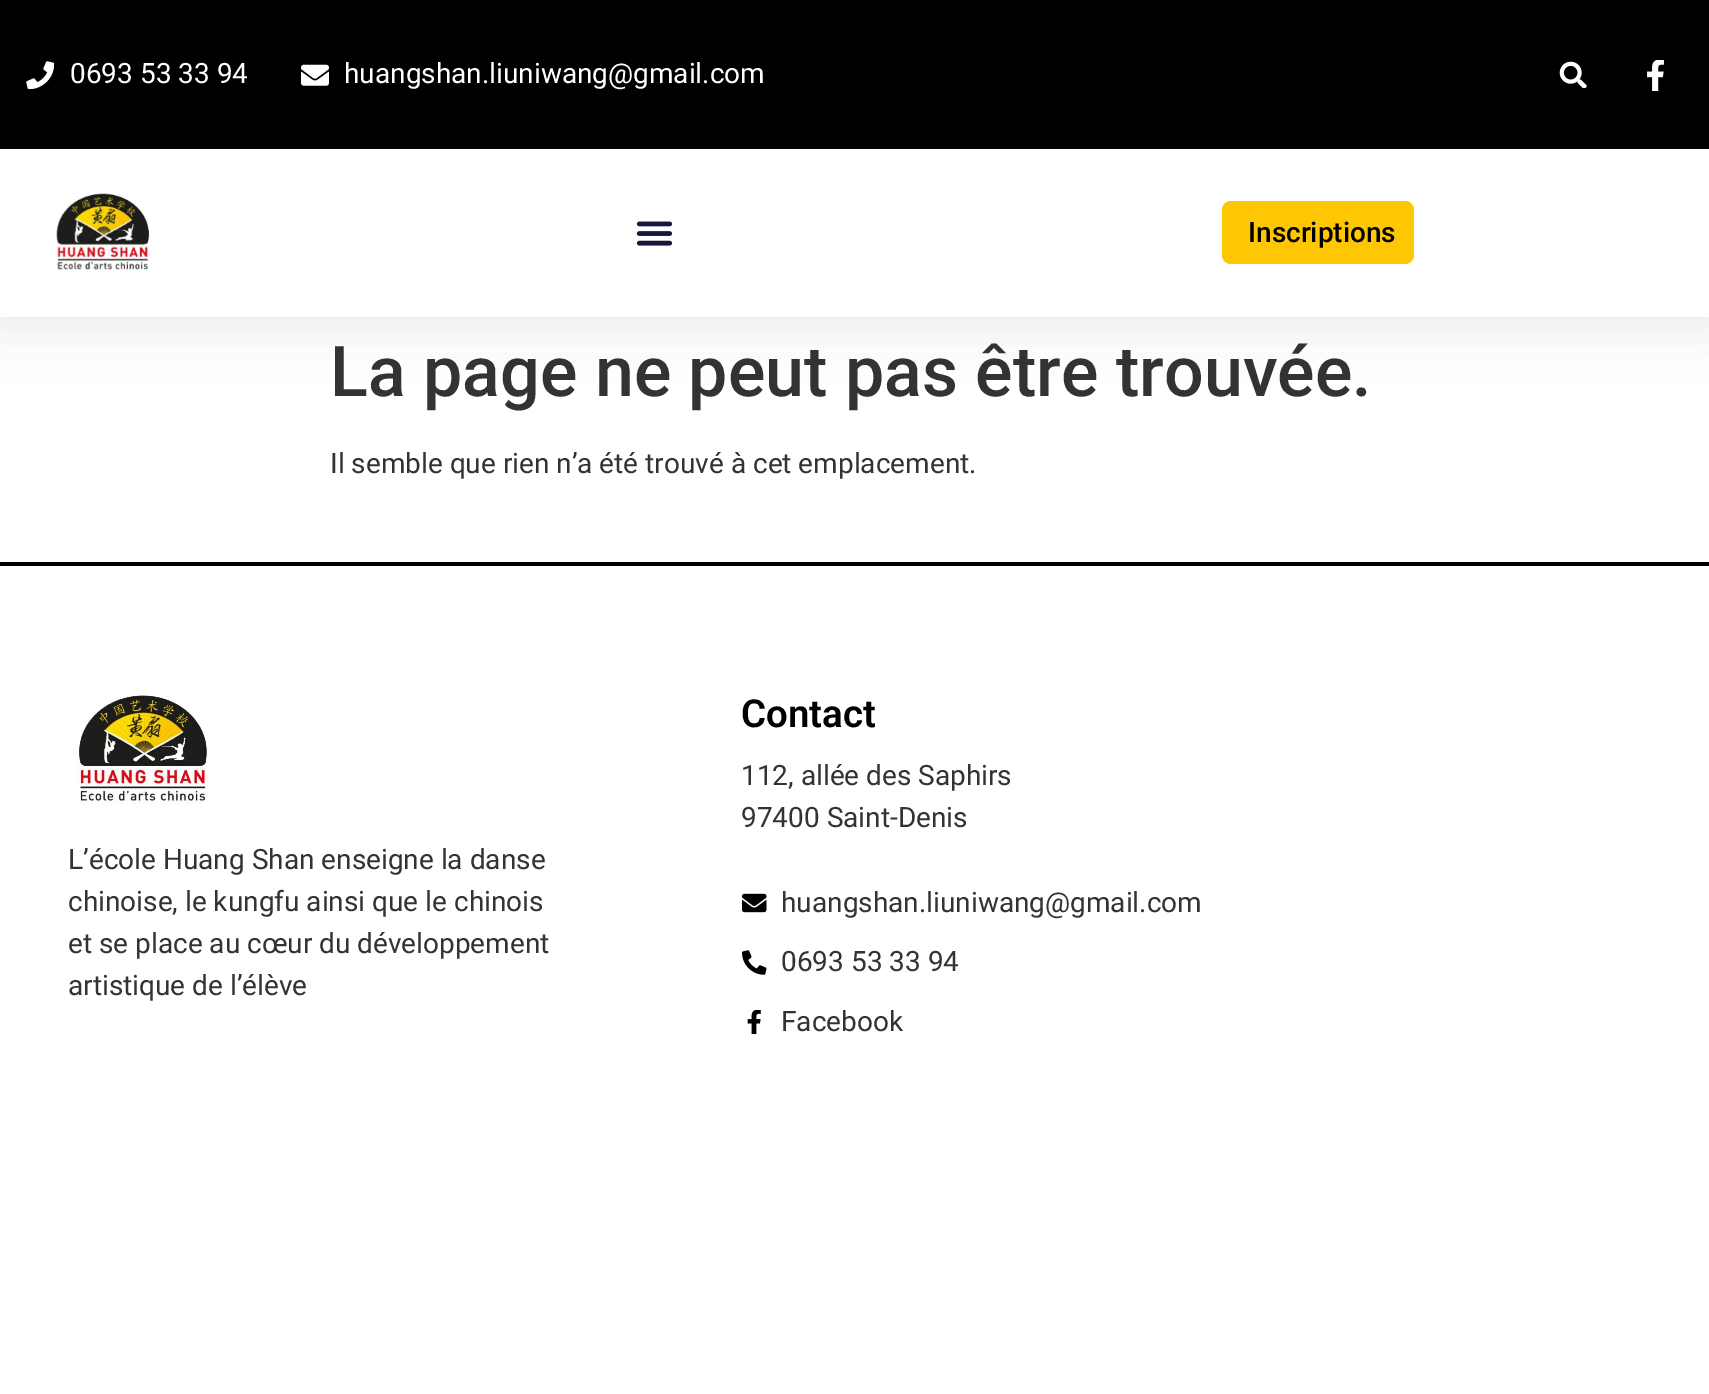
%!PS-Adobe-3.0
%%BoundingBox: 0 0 1709 1394
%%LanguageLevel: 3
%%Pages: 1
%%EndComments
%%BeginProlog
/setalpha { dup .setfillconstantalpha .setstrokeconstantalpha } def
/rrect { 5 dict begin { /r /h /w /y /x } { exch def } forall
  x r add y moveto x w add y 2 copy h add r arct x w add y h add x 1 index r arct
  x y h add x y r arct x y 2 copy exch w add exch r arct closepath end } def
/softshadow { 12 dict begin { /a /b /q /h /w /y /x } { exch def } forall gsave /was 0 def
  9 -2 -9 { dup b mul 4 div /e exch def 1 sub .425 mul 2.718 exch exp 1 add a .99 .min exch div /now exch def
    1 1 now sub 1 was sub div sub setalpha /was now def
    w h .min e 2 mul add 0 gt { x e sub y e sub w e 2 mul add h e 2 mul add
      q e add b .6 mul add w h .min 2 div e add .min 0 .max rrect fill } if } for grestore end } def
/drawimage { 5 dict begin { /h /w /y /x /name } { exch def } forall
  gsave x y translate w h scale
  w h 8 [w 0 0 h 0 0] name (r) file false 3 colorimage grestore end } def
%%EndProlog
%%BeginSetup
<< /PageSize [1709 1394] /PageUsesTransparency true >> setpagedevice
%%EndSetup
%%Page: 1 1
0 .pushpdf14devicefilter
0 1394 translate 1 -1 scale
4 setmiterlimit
1 setgray
0 0 1709 1394 rectfill
0 setgray
0 9 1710 317 0 26 0.1 softshadow
0 0 1709 149 rectfill
(images/1.raw) 26 61 28 28 drawimage
(images/2.raw) 301 64 28 22 drawimage
(images/3.raw) 1559 61 28 27 drawimage
(images/4.raw) 1647 60 17 31 drawimage
1 setgray
0 149 1709 168 rectfill
(images/5.raw) 55 193 95 77 drawimage
(images/6.raw) 636 221 37 25 drawimage
0.996 0.776 0.012 setrgbcolor
1222 201 192 63 9 rrect fill
0 setgray
0 562 1709 4 rectfill
(images/7.raw) 76 695 132 109 drawimage
(images/8.raw) 742 893 25 20 drawimage
(images/9.raw) 742 950 25 25 drawimage
(images/10.raw) 747 1010 14 24 drawimage
/Roboto-Regular [28 0 0 -28 0 0] selectfont
1 setgray
70 83 moveto (0693 53 33 94) show
344 83 moveto (huangshan.liuniwang@gmail.com) show
/Roboto-Medium [28 0 0 -28 0 0] selectfont
0 setgray
1248 242 moveto (Inscriptions) show
/Roboto-Medium [70 0 0 -70 0 0] selectfont
0.2 setgray
330 396 moveto (La page ne peut pas être trouvée.) show
/Roboto-Regular [28 0 0 -28 0 0] selectfont
330 473 moveto (Il semble que rien n’a été trouvé à cet emplacement.) show
68 869 moveto (L’école Huang Shan enseigne la danse) show
68 911 moveto (chinoise, le kungfu ainsi que le chinois) show
68 953 moveto (et se place au cœur du développement) show
68 995 moveto (artistique de l’élève) show
/Roboto-SemiBold [38.5 0 0 -38.5 0 0] selectfont
0 setgray
741 727 moveto (Contact) show
/Roboto-Regular [28 0 0 -28 0 0] selectfont
0.2 setgray
741 785 moveto (112, allée des Saphirs) show
741 827 moveto (97400 Saint-Denis) show
781 912 moveto (huangshan.liuniwang@gmail.com) show
781 971 moveto (0693 53 33 94) show
781 1031 moveto (Facebook) show
.poppdf14devicefilter showpage
%%EOF
